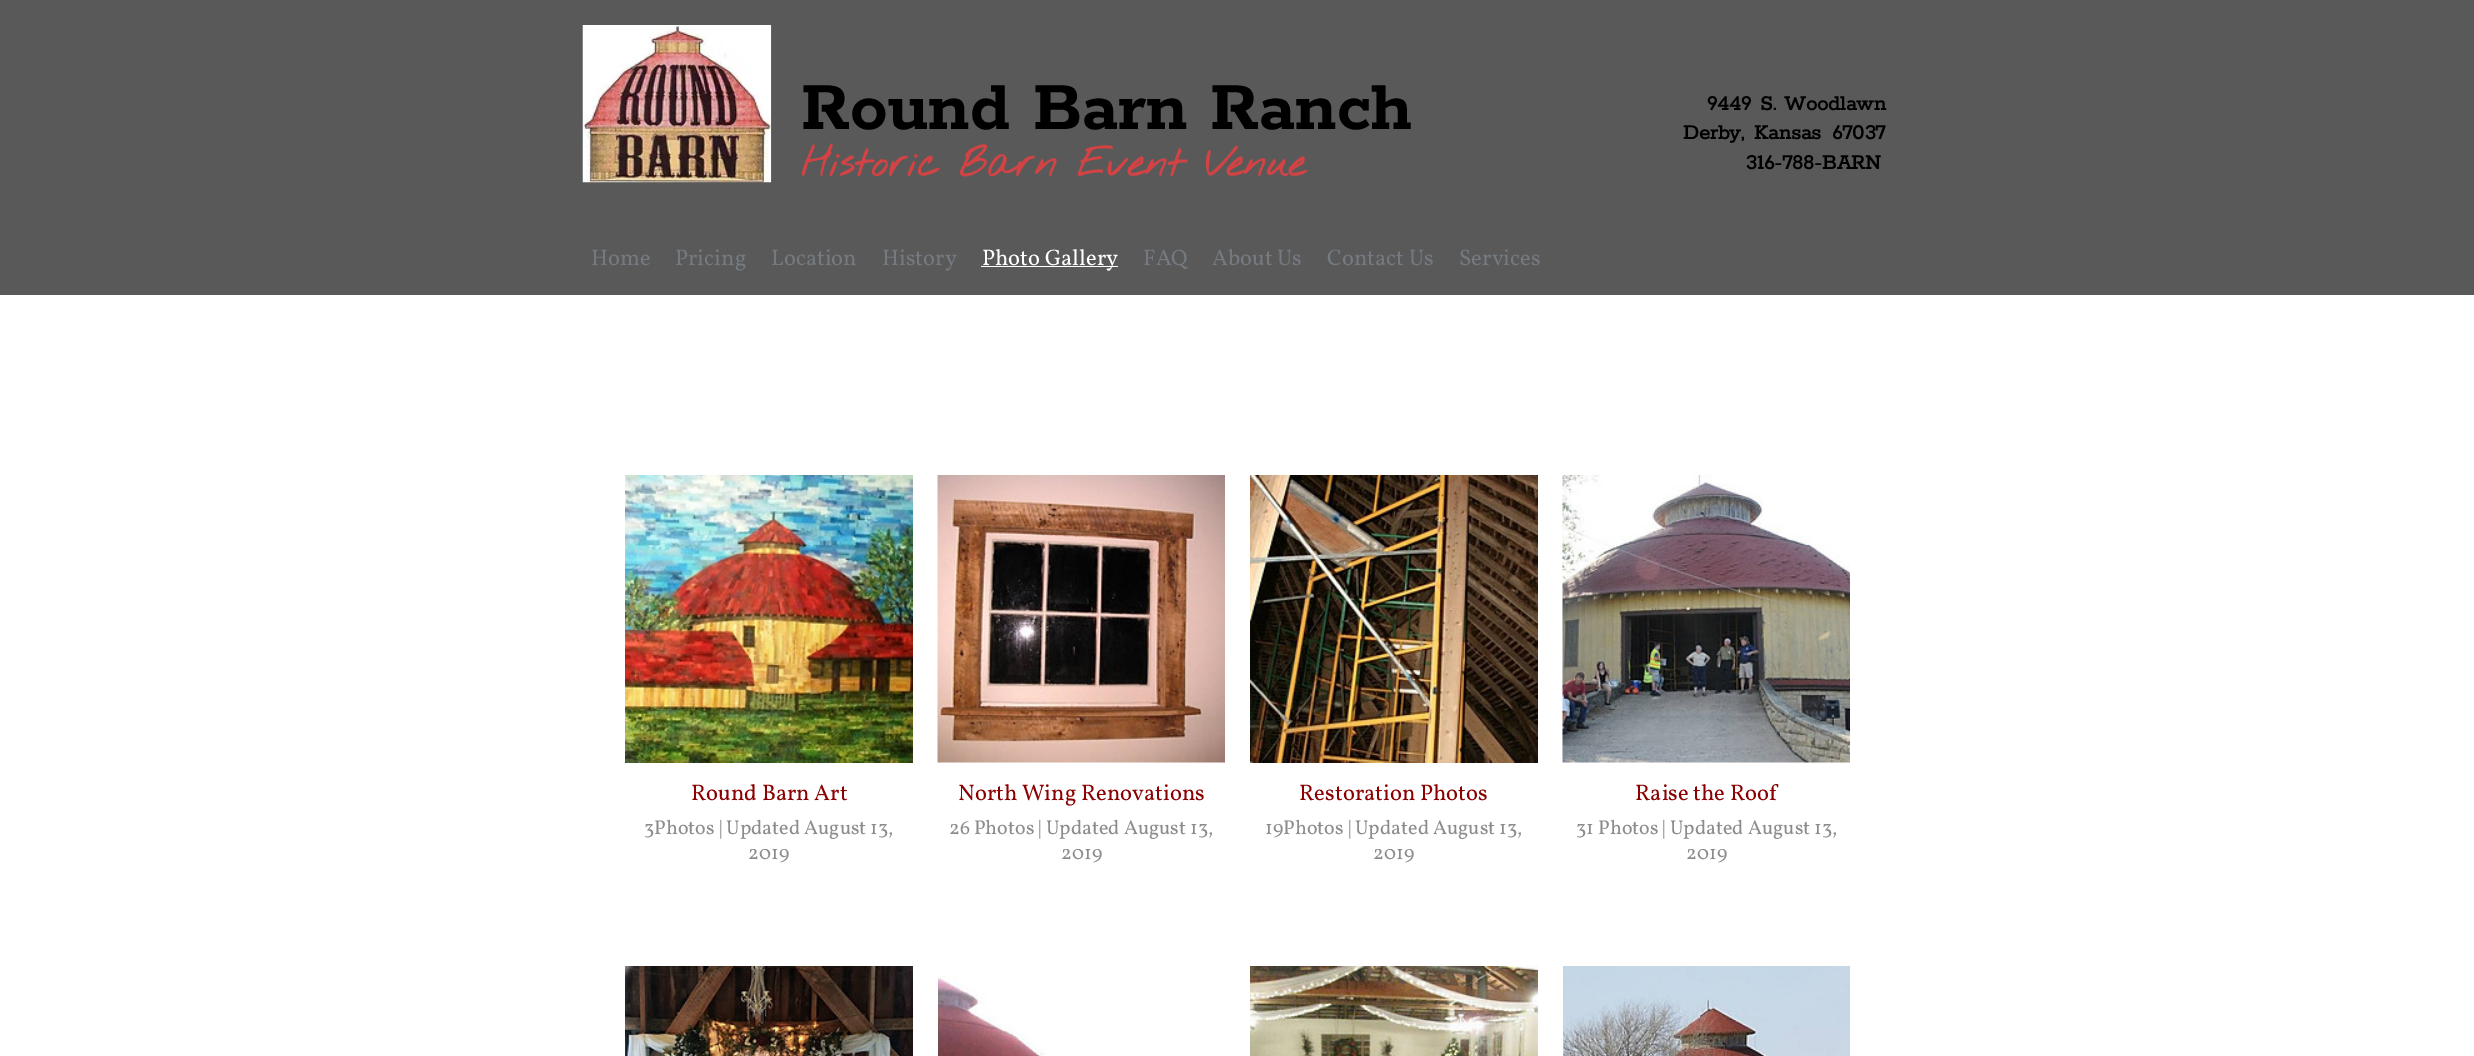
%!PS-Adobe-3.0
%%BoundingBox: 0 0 2474 1056
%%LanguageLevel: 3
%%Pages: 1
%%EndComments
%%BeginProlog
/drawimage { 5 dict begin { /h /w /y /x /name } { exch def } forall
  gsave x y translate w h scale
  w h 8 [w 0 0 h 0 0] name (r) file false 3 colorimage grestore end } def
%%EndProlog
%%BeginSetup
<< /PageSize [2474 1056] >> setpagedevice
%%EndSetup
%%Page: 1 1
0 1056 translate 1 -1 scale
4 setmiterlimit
0.349 setgray
0 0 2474 1056 rectfill
(images/1.raw) 582 25 190 158 drawimage
1 setgray
981 266 137 1 rectfill
0 295 2474 761 rectfill
(images/2.raw) 625 475 288 288 drawimage
(images/3.raw) 937 475 288 288 drawimage
(images/4.raw) 1250 475 288 288 drawimage
(images/5.raw) 1562 475 288 288 drawimage
(images/6.raw) 625 966 288 90 drawimage
(images/7.raw) 938 976 108 80 drawimage
(images/8.raw) 1250 966 288 90 drawimage
(images/9.raw) 1563 966 287 90 drawimage
/Rokkitt-Bold [75 0 0 -75 0 0] selectfont
0 setgray
801 129 moveto (Round Barn Ranch) show
/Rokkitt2-Bold [22.5 0 0 -22.5 0 0] selectfont
1707 110 moveto 2 0 32 (9449 S. Woodlawn) widthshow
1683 139 moveto 4 0 32 (Derby, Kansas 67037) widthshow
1746 169 moveto (316-788-BARN) show
/NothingYouCouldDo-Bold [40 0 0 -40 0 0] selectfont
0.824 0.263 0.271 setrgbcolor
801 176 moveto (Historic Barn Event Venue) show
/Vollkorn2-Regular [22.5 0 0 -22.5 0 0] selectfont
0.455 0.478 0.502 setrgbcolor
591 265 moveto (Home) show
675 265 moveto (Pricing) show
771 265 moveto (Location) show
882 265 moveto (History) show
1 setgray
982 265 moveto (Photo Gallery) show
0.455 0.478 0.502 setrgbcolor
1143 265 moveto (FAQ) show
1212 265 moveto (About Us) show
1327 265 moveto (Contact Us) show
1459 265 moveto (Services) show
/Vollkorn-Regular [22.5 0 0 -22.5 0 0] selectfont
0.545 0 0 setrgbcolor
691 800 moveto (Round Barn Art) show
/Vollkorn-Regular [20 0 0 -20 0 0] selectfont
0.553 0.545 0.549 setrgbcolor
644 834 moveto (3Photos | Updated August 13,) show
748 859 moveto (2019) show
/Vollkorn-Regular [22.5 0 0 -22.5 0 0] selectfont
0.545 0 0 setrgbcolor
958 800 moveto (North Wing Renovations) show
/Vollkorn-Regular [20 0 0 -20 0 0] selectfont
0.553 0.545 0.549 setrgbcolor
949 834 moveto (26 Photos | Updated August 13,) show
1061 859 moveto (2019) show
/Vollkorn-Regular [22.5 0 0 -22.5 0 0] selectfont
0.545 0 0 setrgbcolor
1299 800 moveto (Restoration Photos) show
/Vollkorn-Regular [20 0 0 -20 0 0] selectfont
0.553 0.545 0.549 setrgbcolor
1265 834 moveto (19Photos | Updated August 13,) show
1373 859 moveto (2019) show
/Vollkorn-Regular [22.5 0 0 -22.5 0 0] selectfont
0.545 0 0 setrgbcolor
1635 800 moveto (Raise the Roof) show
/Vollkorn-Regular [20 0 0 -20 0 0] selectfont
0.553 0.545 0.549 setrgbcolor
1576 834 moveto (31 Photos | Updated August 13,) show
1686 859 moveto (2019) show
showpage
%%EOF
